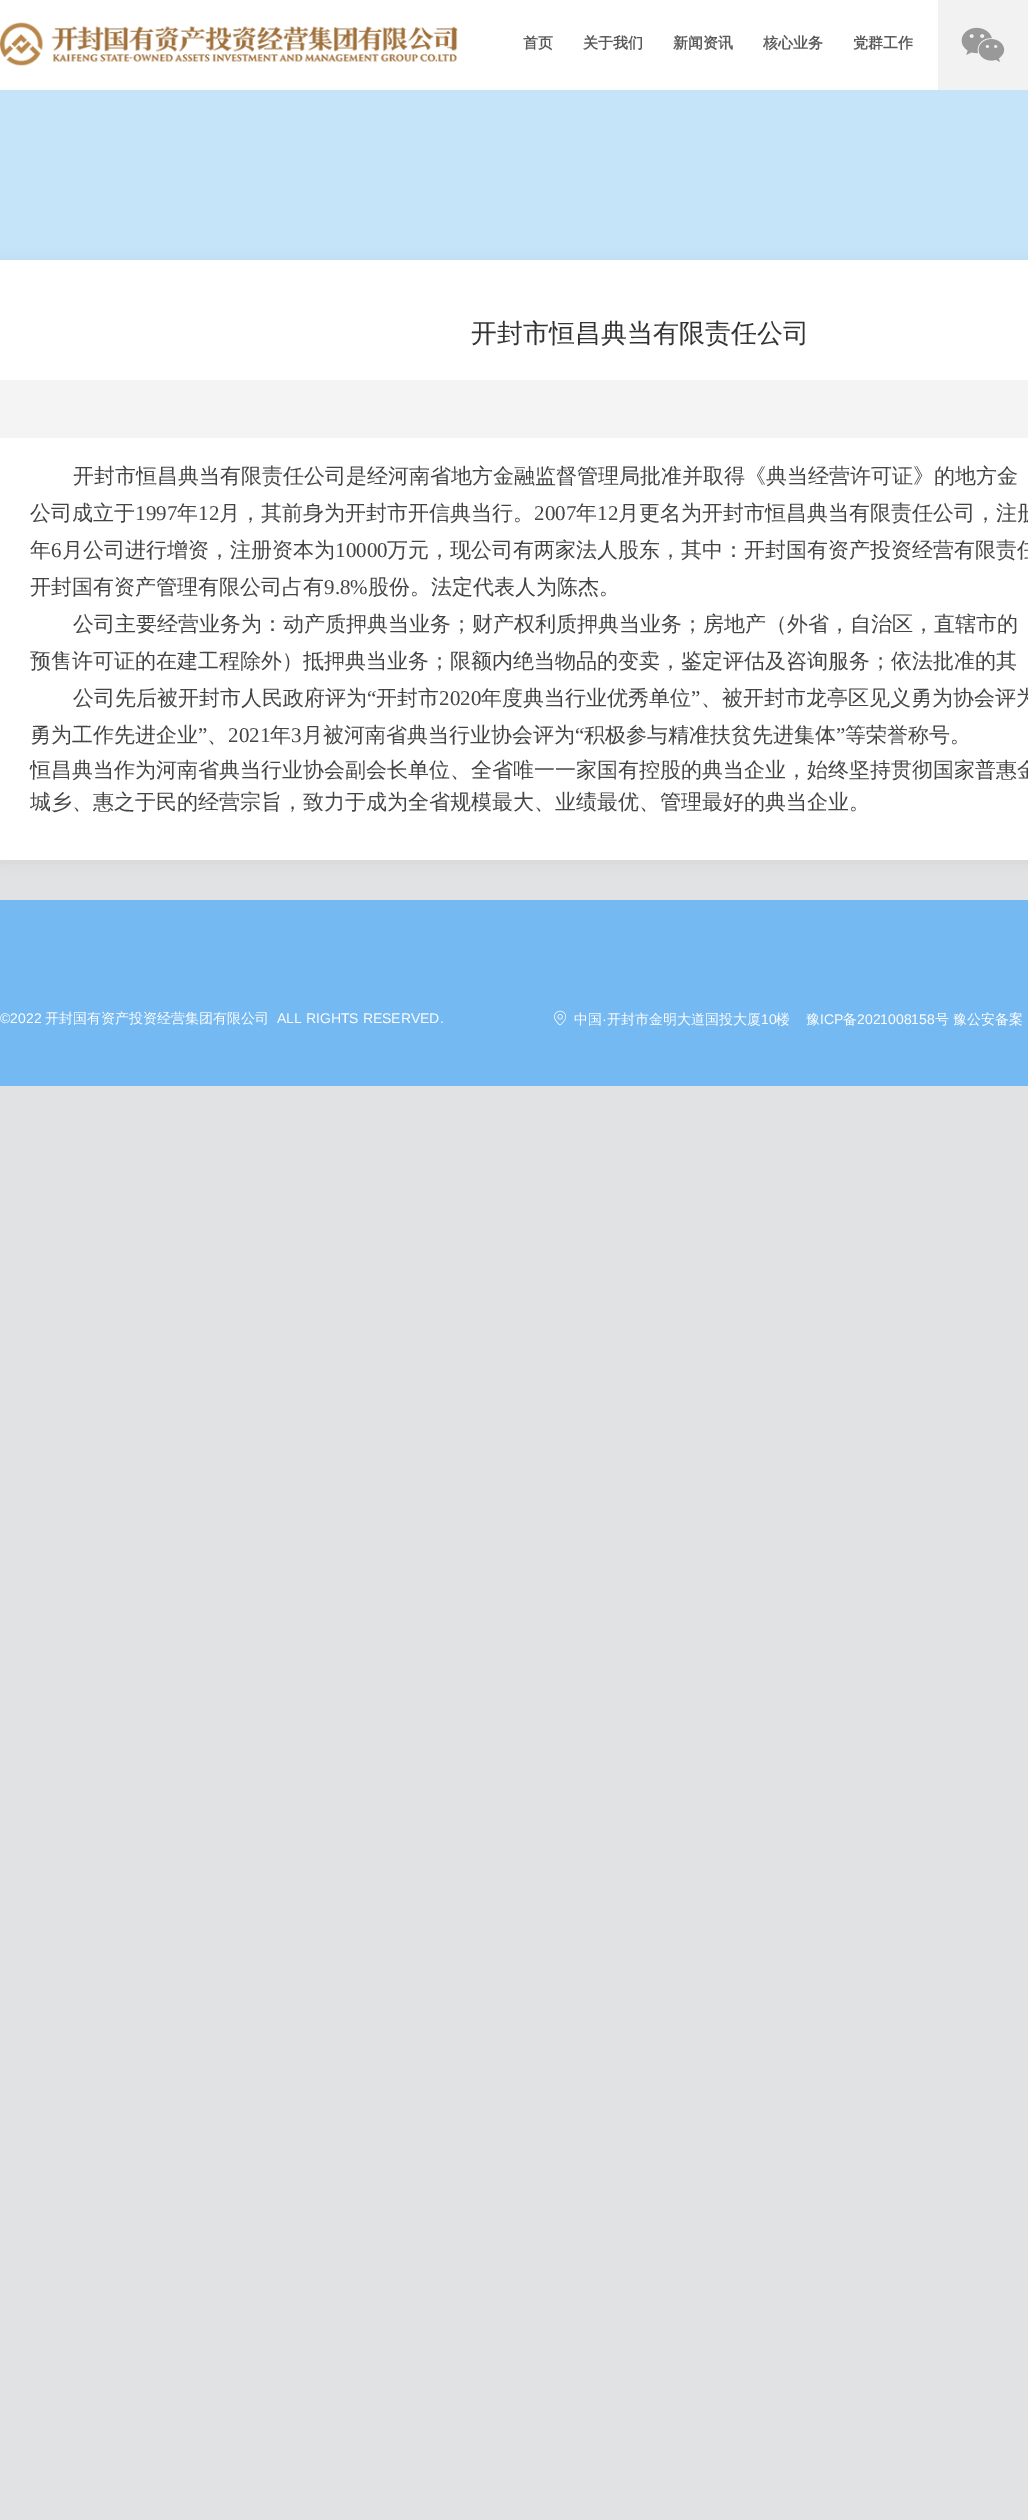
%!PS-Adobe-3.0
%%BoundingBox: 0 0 1028 2520
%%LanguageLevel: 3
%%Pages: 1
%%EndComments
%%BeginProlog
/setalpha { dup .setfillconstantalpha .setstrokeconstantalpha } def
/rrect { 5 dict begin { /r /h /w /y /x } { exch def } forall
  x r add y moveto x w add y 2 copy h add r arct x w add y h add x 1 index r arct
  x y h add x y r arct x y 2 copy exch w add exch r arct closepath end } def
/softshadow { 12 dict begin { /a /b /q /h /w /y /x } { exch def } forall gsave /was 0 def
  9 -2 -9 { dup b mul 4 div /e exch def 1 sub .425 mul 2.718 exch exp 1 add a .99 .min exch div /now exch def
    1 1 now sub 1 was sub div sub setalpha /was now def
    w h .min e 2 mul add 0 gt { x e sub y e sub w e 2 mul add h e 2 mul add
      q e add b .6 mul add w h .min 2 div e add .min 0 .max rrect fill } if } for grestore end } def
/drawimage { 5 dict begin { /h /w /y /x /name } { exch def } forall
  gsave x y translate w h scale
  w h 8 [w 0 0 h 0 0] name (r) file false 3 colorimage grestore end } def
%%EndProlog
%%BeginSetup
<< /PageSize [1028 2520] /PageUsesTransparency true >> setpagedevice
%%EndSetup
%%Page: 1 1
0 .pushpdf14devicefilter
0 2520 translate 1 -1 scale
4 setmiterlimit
0.878 0.886 0.894 setrgbcolor
0 0 1028 2520 rectfill
1 setgray
0 0 938 90 rectfill
(images/1.raw) 0 22 458 44 drawimage
0.949 setgray
938 0 90 90 rectfill
(images/2.raw) 961 27 44 35 drawimage
0.773 0.894 0.976 setrgbcolor
0 90 1028 170 rectfill
0 setgray
0 262 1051 600 0 7.5 0.05 softshadow
1 setgray
0 260 1028 600 rectfill
0.957 setgray
0 380 1028 58 rectfill
0.459 0.725 0.949 setrgbcolor
0 900 1028 186 rectfill
(images/3.raw) 554 1010 12 16 drawimage
/WenQuanYiZenHei-Bold [15 0 0 -15 0 0] selectfont
0.353 setgray
523 48 moveto (首页) show
583 48 moveto (关于我们) show
673 48 moveto (新闻资讯) show
763 48 moveto (核心业务) show
853 48 moveto (党群工作) show
/WenQuanYiZenHei-Medium [26 0 0 -26 0 0] selectfont
0.2 setgray
471 342 moveto (开封市恒昌典当有限责任公司) show
/WenQuanYiZenHei-Medium [21 0 0 -21 0 0] selectfont
0.267 setgray
73 483 moveto (开封市恒昌典当有限责任公司是经河南省地方金融监督管理局批准并取得《典当经营许可证》的地方金) show
30 520 moveto (公司成立于) show
/LiberationSerif-Regular [21 0 0 -21 0 0] selectfont
135 520 moveto (1997) show
/WenQuanYiZenHei-Medium [21 0 0 -21 0 0] selectfont
177 520 moveto (年) show
/LiberationSerif-Regular [21 0 0 -21 0 0] selectfont
198 520 moveto (12) show
/WenQuanYiZenHei-Medium [21 0 0 -21 0 0] selectfont
219 520 moveto (月，其前身为开封市开信典当行。) show
/LiberationSerif-Regular [21 0 0 -21 0 0] selectfont
534 520 moveto (2007) show
/WenQuanYiZenHei-Medium [21 0 0 -21 0 0] selectfont
576 520 moveto (年) show
/LiberationSerif-Regular [21 0 0 -21 0 0] selectfont
597 520 moveto (12) show
/WenQuanYiZenHei-Medium [21 0 0 -21 0 0] selectfont
618 520 moveto (月更名为开封市恒昌典当有限责任公司，注册) show
30 557 moveto (年) show
/LiberationSerif-Regular [21 0 0 -21 0 0] selectfont
51 557 moveto (6) show
/WenQuanYiZenHei-Medium [21 0 0 -21 0 0] selectfont
62 557 moveto (月公司进行增资，注册资本为) show
/LiberationSerif-Regular [21 0 0 -21 0 0] selectfont
335 557 moveto (10000) show
/WenQuanYiZenHei-Medium [21 0 0 -21 0 0] selectfont
387 557 moveto (万元，现公司有两家法人股东，其中：开封国有资产投资经营有限责任) show
30 594 moveto (开封国有资产管理有限公司占有) show
/LiberationSerif-Regular [21 0 0 -21 0 0] selectfont
324 594 moveto (9.8%) show
/WenQuanYiZenHei-Medium [21 0 0 -21 0 0] selectfont
368 594 moveto (股份。法定代表人为陈杰。) show
73 631 moveto (公司主要经营业务为：动产质押典当业务；财产权利质押典当业务；房地产（外省，自治区，直辖市的) show
30 668 moveto (预售许可证的在建工程除外）抵押典当业务；限额内绝当物品的变卖，鉴定评估及咨询服务；依法批准的其) show
73 705 moveto (公司先后被开封市人民政府评为) show
/LiberationSerif-Regular [21 0 0 -21 0 0] selectfont
367 705 moveto (“) show
/WenQuanYiZenHei-Medium [21 0 0 -21 0 0] selectfont
376 705 moveto (开封市) show
/LiberationSerif-Regular [21 0 0 -21 0 0] selectfont
439 705 moveto (2020) show
/WenQuanYiZenHei-Medium [21 0 0 -21 0 0] selectfont
481 705 moveto (年度典当行业优秀单位) show
/LiberationSerif-Regular [21 0 0 -21 0 0] selectfont
691 705 moveto (”) show
/WenQuanYiZenHei-Medium [21 0 0 -21 0 0] selectfont
701 705 moveto (、被开封市龙亭区见义勇为协会评为) show
30 742 moveto (勇为工作先进企业) show
/LiberationSerif-Regular [21 0 0 -21 0 0] selectfont
198 742 moveto (”) show
228 742 moveto (2021) show
/WenQuanYiZenHei-Medium [21 0 0 -21 0 0] selectfont
270 742 moveto (年) show
/LiberationSerif-Regular [21 0 0 -21 0 0] selectfont
291 742 moveto (3) show
/WenQuanYiZenHei-Medium [21 0 0 -21 0 0] selectfont
302 742 moveto (月被河南省典当行业协会评为) show
/LiberationSerif-Regular [21 0 0 -21 0 0] selectfont
575 742 moveto (“) show
/WenQuanYiZenHei-Medium [21 0 0 -21 0 0] selectfont
584 742 moveto (积极参与精准扶贫先进集体) show
/LiberationSerif-Regular [21 0 0 -21 0 0] selectfont
836 742 moveto (”) show
/WenQuanYiZenHei-Medium [21 0 0 -21 0 0] selectfont
845 742 moveto (等荣誉称号。) show
207 742 moveto (、) show
30 777 moveto (恒昌典当作为河南省典当行业协会副会长单位、全省唯一一家国有控股的典当企业，始终坚持贯彻国家普惠金) show
30 809 moveto (城乡、惠之于民的经营宗旨，致力于成为全省规模最大、业绩最优、管理最好的典当企业。) show
/LiberationSans-Regular [14 0 0 -14 0 0] selectfont
1 setgray
0 1023 moveto (©2022) show
/WenQuanYiZenHei-Medium [14 0 0 -14 0 0] selectfont
45 1023 moveto (开封国有资产投资经营集团有限公司) show
/LiberationSans-Regular [14 0 0 -14 0 0] selectfont
277 1023 moveto (ALL RIGHTS RESERVED.) show
/WenQuanYiZenHei-Medium [14 0 0 -14 0 0] selectfont
574 1024 moveto (中国) show
/LiberationSans-Regular [14 0 0 -14 0 0] selectfont
602 1024 moveto (·) show
/WenQuanYiZenHei-Medium [14 0 0 -14 0 0] selectfont
607 1024 moveto (开封市金明大道国投大厦) show
/LiberationSans-Regular [14 0 0 -14 0 0] selectfont
761 1024 moveto (10) show
/WenQuanYiZenHei-Medium [14 0 0 -14 0 0] selectfont
776 1024 moveto (楼) show
806 1024 moveto (豫) show
/LiberationSans-Regular [14 0 0 -14 0 0] selectfont
820 1024 moveto (ICP) show
/WenQuanYiZenHei-Medium [14 0 0 -14 0 0] selectfont
843 1024 moveto (备) show
/LiberationSans-Regular [14 0 0 -14 0 0] selectfont
857 1024 moveto (2021008158) show
/WenQuanYiZenHei-Medium [14 0 0 -14 0 0] selectfont
935 1024 moveto (号) show
953 1024 moveto (豫公安备案) show
.poppdf14devicefilter showpage
%%EOF
